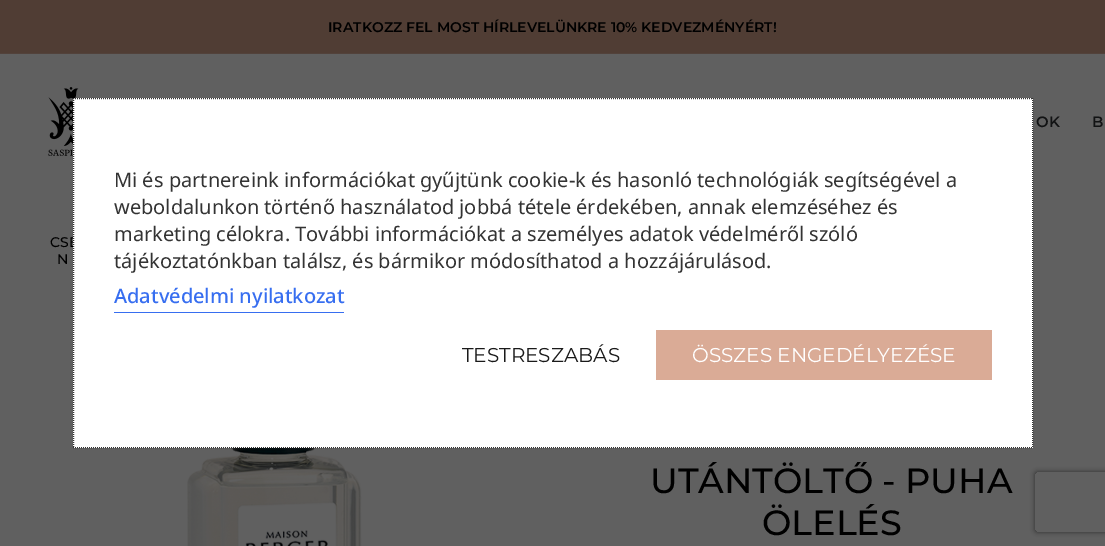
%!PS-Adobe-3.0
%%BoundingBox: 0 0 1105 546
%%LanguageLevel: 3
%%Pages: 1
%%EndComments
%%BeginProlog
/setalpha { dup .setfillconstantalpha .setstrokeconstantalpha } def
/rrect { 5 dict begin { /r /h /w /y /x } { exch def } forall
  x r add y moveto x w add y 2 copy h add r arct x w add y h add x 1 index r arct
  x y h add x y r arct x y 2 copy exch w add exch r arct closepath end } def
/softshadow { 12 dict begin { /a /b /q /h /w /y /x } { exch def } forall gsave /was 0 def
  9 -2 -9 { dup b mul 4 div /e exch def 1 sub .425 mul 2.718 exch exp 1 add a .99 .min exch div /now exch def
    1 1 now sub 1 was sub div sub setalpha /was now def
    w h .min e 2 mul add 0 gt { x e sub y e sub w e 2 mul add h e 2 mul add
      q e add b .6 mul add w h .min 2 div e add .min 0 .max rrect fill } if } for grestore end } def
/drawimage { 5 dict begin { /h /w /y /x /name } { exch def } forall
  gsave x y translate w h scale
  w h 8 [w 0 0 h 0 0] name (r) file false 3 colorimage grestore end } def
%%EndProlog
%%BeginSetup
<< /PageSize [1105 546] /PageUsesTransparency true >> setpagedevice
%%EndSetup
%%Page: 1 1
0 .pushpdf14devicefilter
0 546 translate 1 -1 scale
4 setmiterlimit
0.376 setgray
0 0 1105 546 rectfill
0.314 0.239 0.204 setrgbcolor
0 0 1105 53 rectfill
0.322 0.259 0.231 setrgbcolor
0 53 1105 1 rectfill
(images/1.raw) 48 87 46 69 drawimage
(images/2.raw) 187 448 175 98 drawimage
gsave
newpath 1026 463 moveto 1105 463 lineto 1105 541 lineto 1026 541 lineto closepath 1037 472 moveto 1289 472 lineto 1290 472 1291 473 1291 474 curveto 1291 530 lineto 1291 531 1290 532 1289 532 curveto 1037 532 lineto 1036 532 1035 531 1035 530 curveto 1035 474 lineto 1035 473 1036 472 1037 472 curveto closepath eoclip newpath
0.188 setgray
1035 472 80 60 2 2.5 1 softshadow
grestore
/Montserrat-SemiBold [14 0 0 -14 0 0] selectfont
0 setgray
328 32 moveto (IRATKOZZ FEL MOST HÍRLEVELÜNKRE 10% KEDVEZMÉNYÉRT!) show
/Montserrat-SemiBold [15 0 0 -15 0 0] selectfont
0.071 0.075 0.078 setrgbcolor
1036 127 moveto (OK) show
1092 127 moveto (B) show
/Montserrat-Medium [14 0 0 -14 0 0] selectfont
0 setgray
50 247 moveto (CSE) show
57 264 moveto (N) show
/Montserrat-Medium [35 0 0 -35 0 0] selectfont
650 493 moveto (UTÁNTÖLTŐ - PUHA) show
762 535 moveto (ÖLELÉS) show
1 setgray
73 98 960 350 rectfill
0.2 setgray
[1 1] 0 setdash
newpath 73 98.5 moveto 1033 98.5 lineto stroke
newpath 1032.5 98 moveto 1032.5 448 lineto stroke
newpath 73 447.5 moveto 1033 447.5 lineto stroke
newpath 73.5 98 moveto 73.5 448 lineto stroke
/NotoSans-Regular [20 0 0 -20 0 0] selectfont
114 187 moveto (Mi és partnereink információkat gyűjtünk cookie-k és hasonló technológiák segítségével a) show
114 214 moveto (weboldalunkon történő használatod jobbá tétele érdekében, annak elemzéséhez és) show
114 241 moveto (marketing célokra. További információkat a személyes adatok védelméről szóló) show
114 268 moveto (tájékoztatónkban találsz, és bármikor módosíthatod a hozzájárulásod.) show
/NotoSans-Medium [20 0 0 -20 0 0] selectfont
0.216 0.431 0.941 setrgbcolor
114 303 moveto (Adatvédelmi nyilatkozat) show
114 312 230 1 rectfill
/Montserrat-Regular [20 0 0 -20 0 0] selectfont
0.102 setgray
462 362 moveto (TESTRESZABÁS) show
0.855 0.671 0.588 setrgbcolor
656 330 336 50 rectfill
1 setgray
692 362 moveto (ÖSSZES ENGEDÉLYEZÉSE) show
.poppdf14devicefilter showpage
%%EOF
